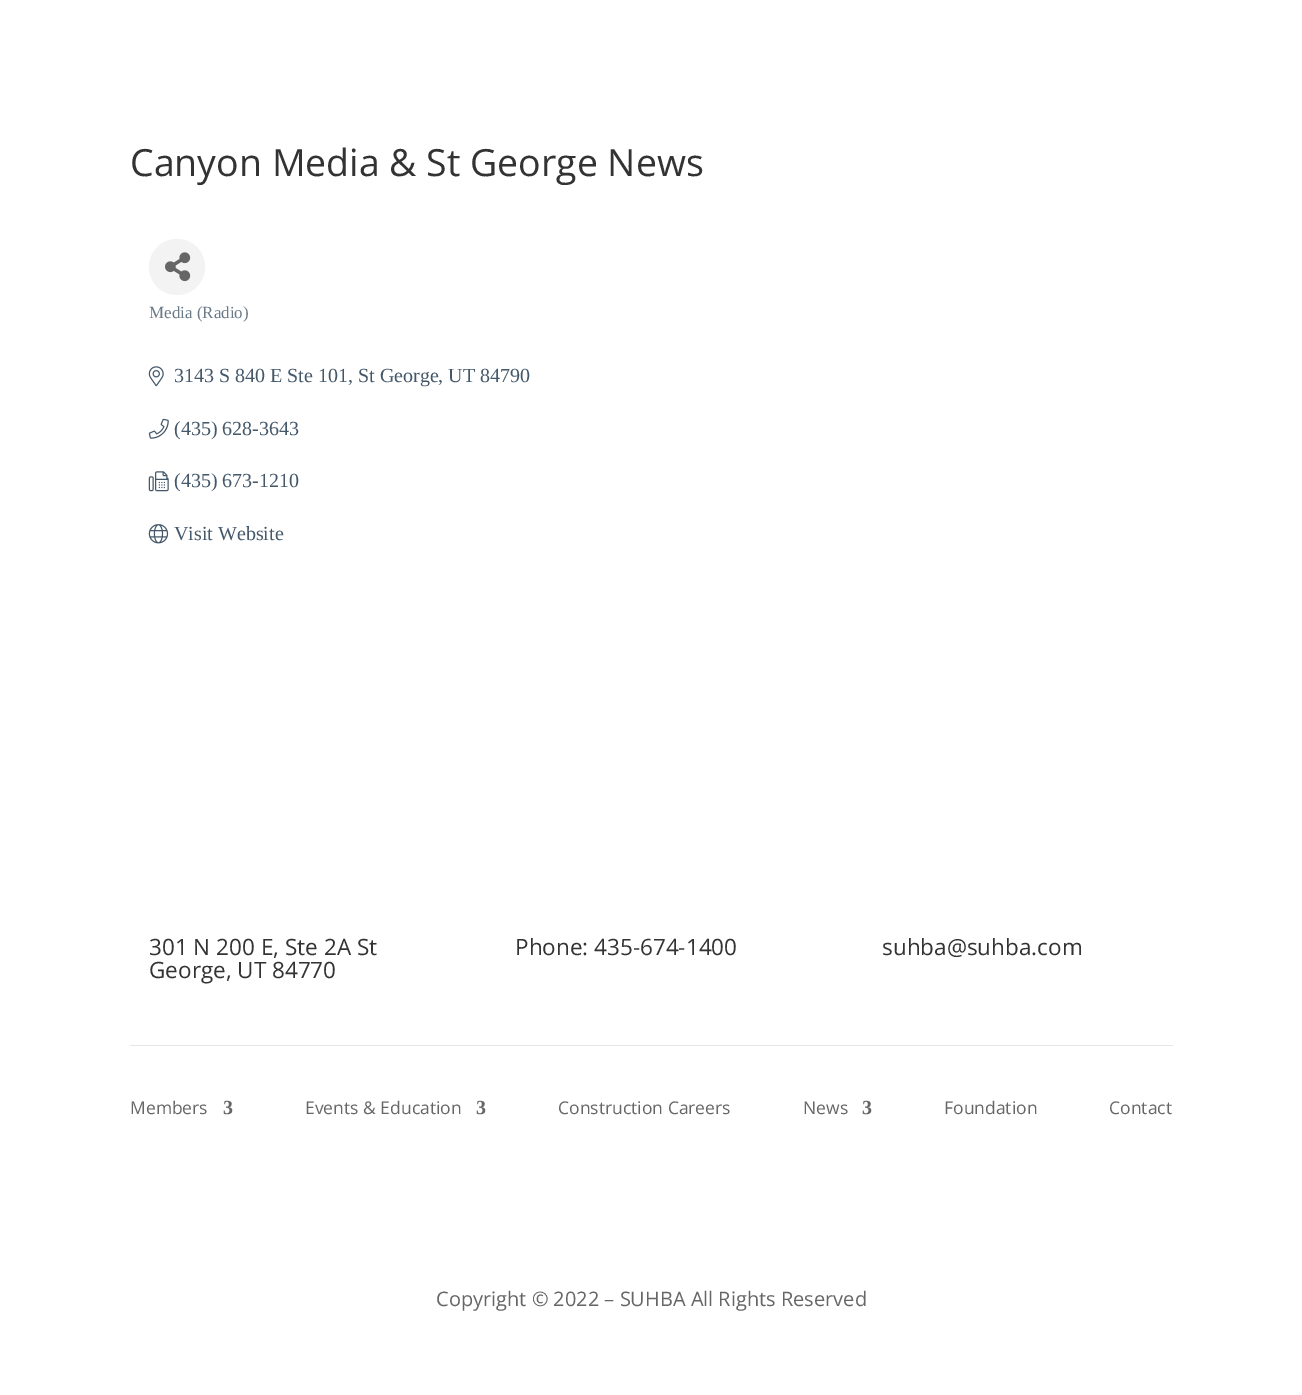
%!PS-Adobe-3.0
%%BoundingBox: 0 0 1302 1395
%%LanguageLevel: 3
%%Pages: 1
%%EndComments
%%BeginProlog
/drawimage { 5 dict begin { /h /w /y /x /name } { exch def } forall
  gsave x y translate w h scale
  w h 8 [w 0 0 h 0 0] name (r) file false 3 colorimage grestore end } def
%%EndProlog
%%BeginSetup
<< /PageSize [1302 1395] >> setpagedevice
%%EndSetup
%%Page: 1 1
0 1395 translate 1 -1 scale
4 setmiterlimit
1 setgray
0 0 1302 1395 rectfill
0.953 setgray
newpath 177 267 28 0 360 arc closepath fill
(images/1.raw) 165 252 26 30 drawimage
(images/2.raw) 148 366 16 21 drawimage
(images/3.raw) 148 418 21 21 drawimage
(images/4.raw) 148 471 21 21 drawimage
(images/5.raw) 148 524 21 20 drawimage
0.902 setgray
130 1045 1043 1 rectfill
/OpenSans-Regular [37.5 0 0 -37.5 0 0] selectfont
0.2 setgray
130 176 moveto (Canyon Media & St George News) show
/LiberationSerif-Regular [17 0 0 -17 0 0] selectfont
0.412 0.475 0.533 setrgbcolor
149 318 moveto (Media \(Radio\)) show
/LiberationSerif-Regular [20 0 0 -20 0 0] selectfont
0.267 0.345 0.416 setrgbcolor
174 382 moveto (3143 S 840 E Ste 101, St George, UT 84790) show
174 435 moveto (\(435\) 628-3643) show
174 487 moveto (\(435\) 673-1210) show
174 540 moveto (Visit Website) show
/OpenSans-Regular [22.5 0 0 -22.5 0 0] selectfont
0.2 setgray
149 955 moveto (301 N 200 E, Ste 2A St) show
149 978 moveto (George, UT 84770) show
515 955 moveto (Phone: 435-674-1400) show
882 955 moveto (suhba@suhba.com) show
/OpenSans-Regular [17.5 0 0 -17.5 0 0] selectfont
0.4 setgray
130 1114 moveto (Members) show
/LiberationSerif-Bold [20 0 0 -20 0 0] selectfont
223 1114 moveto (3) show
/OpenSans-Regular [17.5 0 0 -17.5 0 0] selectfont
305 1114 moveto (Events & Education) show
/LiberationSerif-Bold [20 0 0 -20 0 0] selectfont
476 1114 moveto (3) show
/OpenSans-Regular [17.5 0 0 -17.5 0 0] selectfont
558 1114 moveto (Construction Careers) show
803 1114 moveto (News) show
/LiberationSerif-Bold [20 0 0 -20 0 0] selectfont
862 1114 moveto (3) show
/OpenSans-Regular [17.5 0 0 -17.5 0 0] selectfont
944 1114 moveto (Foundation) show
1109 1114 moveto (Contact) show
/OpenSans-Regular [20 0 0 -20 0 0] selectfont
436 1306 moveto (Copyright © 2022 – SUHBA All Rights Reserved) show
showpage
%%EOF
